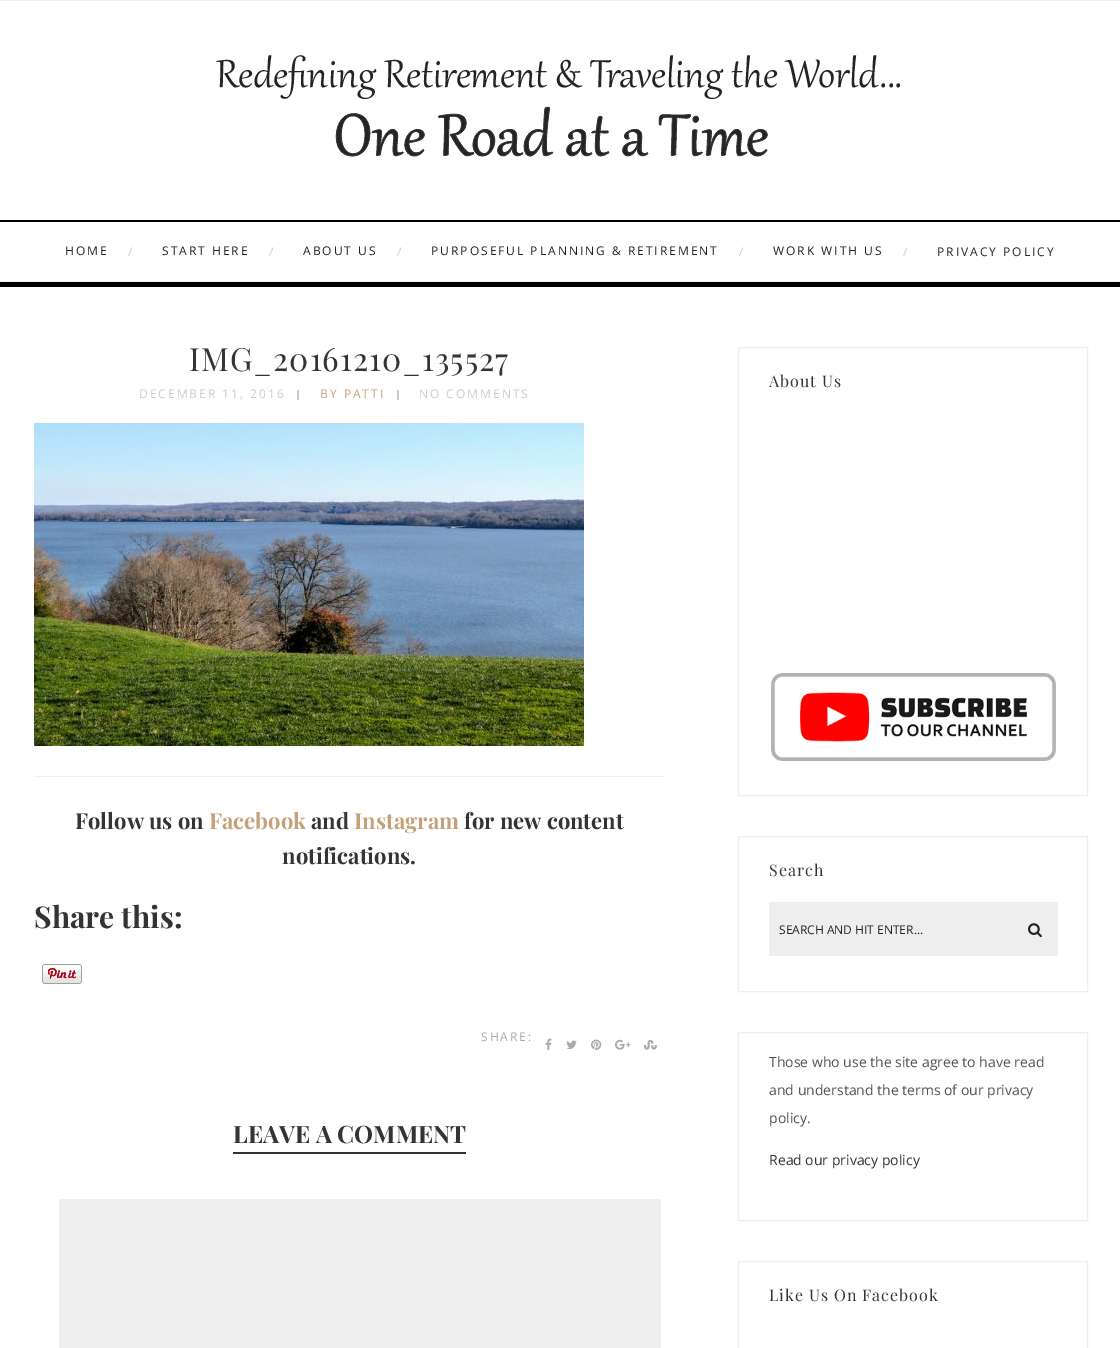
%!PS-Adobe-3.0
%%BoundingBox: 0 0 1120 1348
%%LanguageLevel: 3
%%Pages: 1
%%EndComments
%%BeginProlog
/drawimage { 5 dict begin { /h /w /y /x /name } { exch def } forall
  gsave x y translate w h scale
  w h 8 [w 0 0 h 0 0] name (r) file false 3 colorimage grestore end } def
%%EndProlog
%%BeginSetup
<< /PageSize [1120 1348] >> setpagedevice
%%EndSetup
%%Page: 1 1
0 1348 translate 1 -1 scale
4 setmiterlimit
1 setgray
0 0 1120 1348 rectfill
0.933 setgray
0 0 1120 1 rectfill
(images/1.raw) 216 55 684 102 drawimage
0 setgray
0 220 1120 2 rectfill
0 282 1120 5 rectfill
0.933 setgray
0 281 1120 1 rectfill
0.8 setgray
297 390 2 10 rectfill
397 390 2 10 rectfill
(images/2.raw) 34 423 550 323 drawimage
0.937 setgray
34 776 631 1 rectfill
(images/3.raw) 42 964 40 20 drawimage
(images/4.raw) 545 1038 7 12 drawimage
(images/5.raw) 566 1040 11 9 drawimage
(images/6.raw) 591 1039 11 11 drawimage
(images/7.raw) 615 1039 16 11 drawimage
(images/8.raw) 644 1039 13 11 drawimage
0.2 setgray
233 1152 233 2 rectfill
0.933 setgray
59 1199 602 149 rectfill
738.5 347.5 349 448 rectstroke
(images/9.raw) 771 673 285 88 drawimage
738.5 836.5 349 155 rectstroke
769 902 289 54 rectfill
(images/10.raw) 1028 923 14 15 drawimage
738.5 1032.5 349 188 rectstroke
738.5 1261.5 349 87 rectstroke
/OpenSans-Regular [12 0 0 -12 0 0] selectfont
0.133 setgray
65 255 moveto 2 0 (HOME) ashow
0.8 setgray
128 256 moveto 2 0 (/) ashow
0.133 setgray
162 255 moveto 2 0 (START HERE) ashow
0.8 setgray
269 256 moveto 2 0 (/) ashow
0.133 setgray
303 255 moveto 2 0 (ABOUT US) ashow
0.8 setgray
397 256 moveto 2 0 (/) ashow
0.133 setgray
431 255 moveto 2 0 (PURPOSEFUL PLANNING & RETIREMENT) ashow
0.8 setgray
739 256 moveto 2 0 (/) ashow
0.133 setgray
773 255 moveto 2 0 (WORK WITH US) ashow
0.8 setgray
903 256 moveto 2 0 (/) ashow
0.133 setgray
937 256 moveto 2 0 (PRIVACY POLICY) ashow
/PlayfairDisplay-Regular [32 0 0 -32 0 0] selectfont
0.204 setgray
189 371 moveto 1 0 (IMG_20161210_135527) ashow
/OpenSans-Regular [12 0 0 -12 0 0] selectfont
0.8 setgray
139 398 moveto 2 0 (DECEMBER 11, 2016) ashow
0.773 0.631 0.475 setrgbcolor
320 398 moveto 2 0 (BY PATTI) ashow
0.8 setgray
419 398 moveto 2 0 (NO COMMENTS) ashow
/PlayfairDisplay-Bold [22 0 0 -22 0 0] selectfont
0.204 setgray
75 829 moveto (Follow us on) show
0.773 0.631 0.475 setrgbcolor
209 829 moveto (Facebook) show
0.204 setgray
311 829 moveto (and) show
0.773 0.631 0.475 setrgbcolor
354 829 moveto (Instagram) show
0.204 setgray
464 829 moveto (for new content) show
282 864 moveto (notifications.) show
/PlayfairDisplay-Bold [30 0 0 -30 0 0] selectfont
34 928 moveto (Share this:) show
/OpenSans-Regular [12 0 0 -12 0 0] selectfont
0.667 setgray
481 1041 moveto 2 0 (SHARE:) ashow
/PlayfairDisplay-Bold [24 0 0 -24 0 0] selectfont
0.204 setgray
233 1143 moveto (LEAVE A COMMENT) show
/PlayfairDisplay-Regular [16 0 0 -16 0 0] selectfont
769 387 moveto 1 0 (About Us) ashow
769 876 moveto 1 0 (Search) ashow
/OpenSans-Regular [12 0 0 -12 0 0] selectfont
0.133 setgray
779 934 moveto (SEARCH AND HIT ENTER...) show
/OpenSans-Regular [14 0 0 -14 0 0] selectfont
0.322 0.329 0.322 setrgbcolor
769 1067 moveto (Those who use the site agree to have read) show
769 1095 moveto (and understand the terms of our privacy) show
769 1123 moveto (policy.) show
0.204 setgray
769 1165 moveto (Read our privacy policy) show
/PlayfairDisplay-Regular [16 0 0 -16 0 0] selectfont
769 1301 moveto 1 0 (Like Us On Facebook) ashow
showpage
%%EOF
